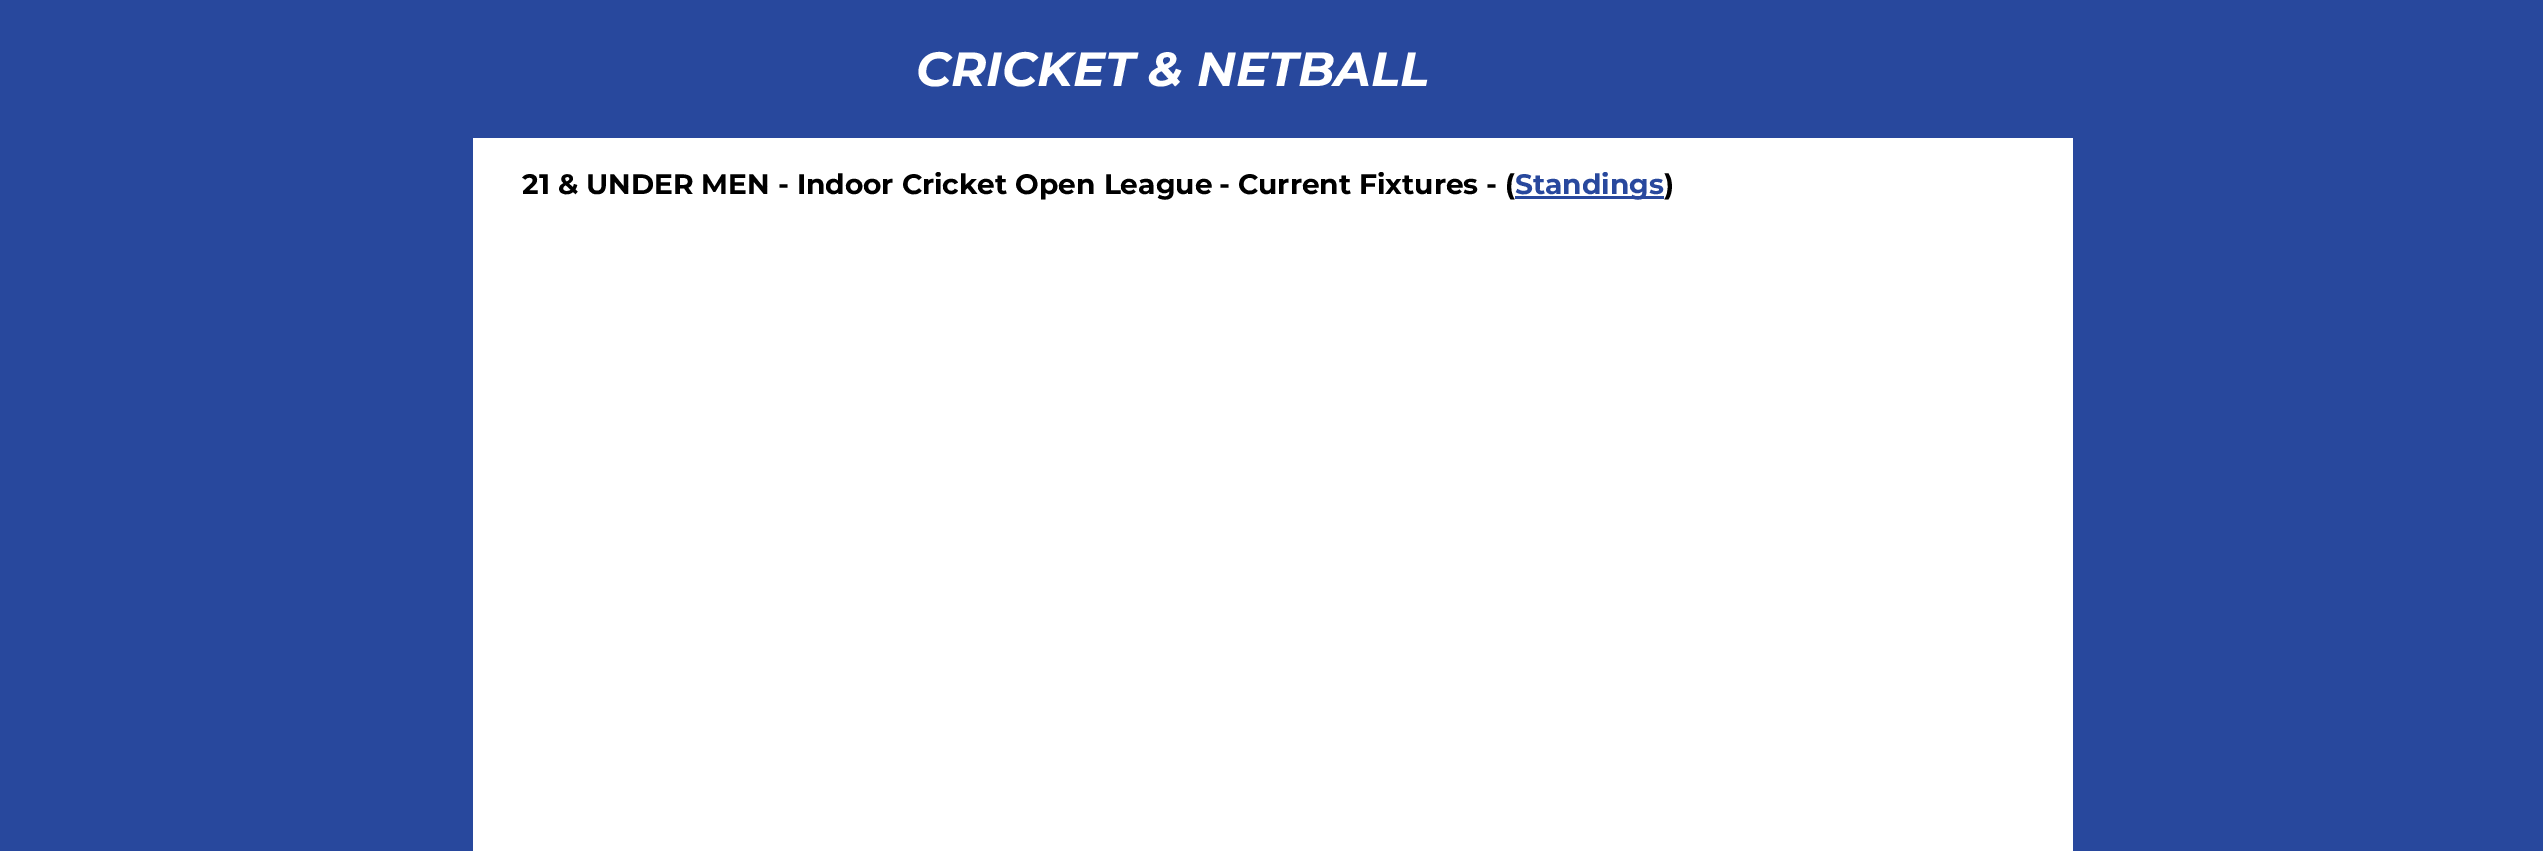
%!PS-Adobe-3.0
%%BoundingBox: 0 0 2543 851
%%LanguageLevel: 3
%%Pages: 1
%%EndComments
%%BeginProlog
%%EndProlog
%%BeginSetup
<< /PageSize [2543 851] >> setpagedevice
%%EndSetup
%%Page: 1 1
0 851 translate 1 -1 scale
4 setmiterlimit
0.157 0.282 0.616 setrgbcolor
0 0 2543 851 rectfill
1 setgray
473 138 1600 713 rectfill
0.157 0.282 0.616 setrgbcolor
1515 196 149 3 rectfill
/Montserrat-BoldItalic [48 0 0 -48 0 0] selectfont
1 setgray
916 86 moveto (CRICKET & NETBALL) show
/Montserrat-Bold [28.1 0 0 -28.1 0 0] selectfont
0 setgray
522 194 moveto (21 & UNDER MEN - Indoor Cricket Open League) show
1219 194 moveto (- Current Fixtures - \() show
0.157 0.282 0.616 setrgbcolor
1515 194 moveto (Standings) show
0 setgray
1664 194 moveto (\)) show
showpage
%%EOF
